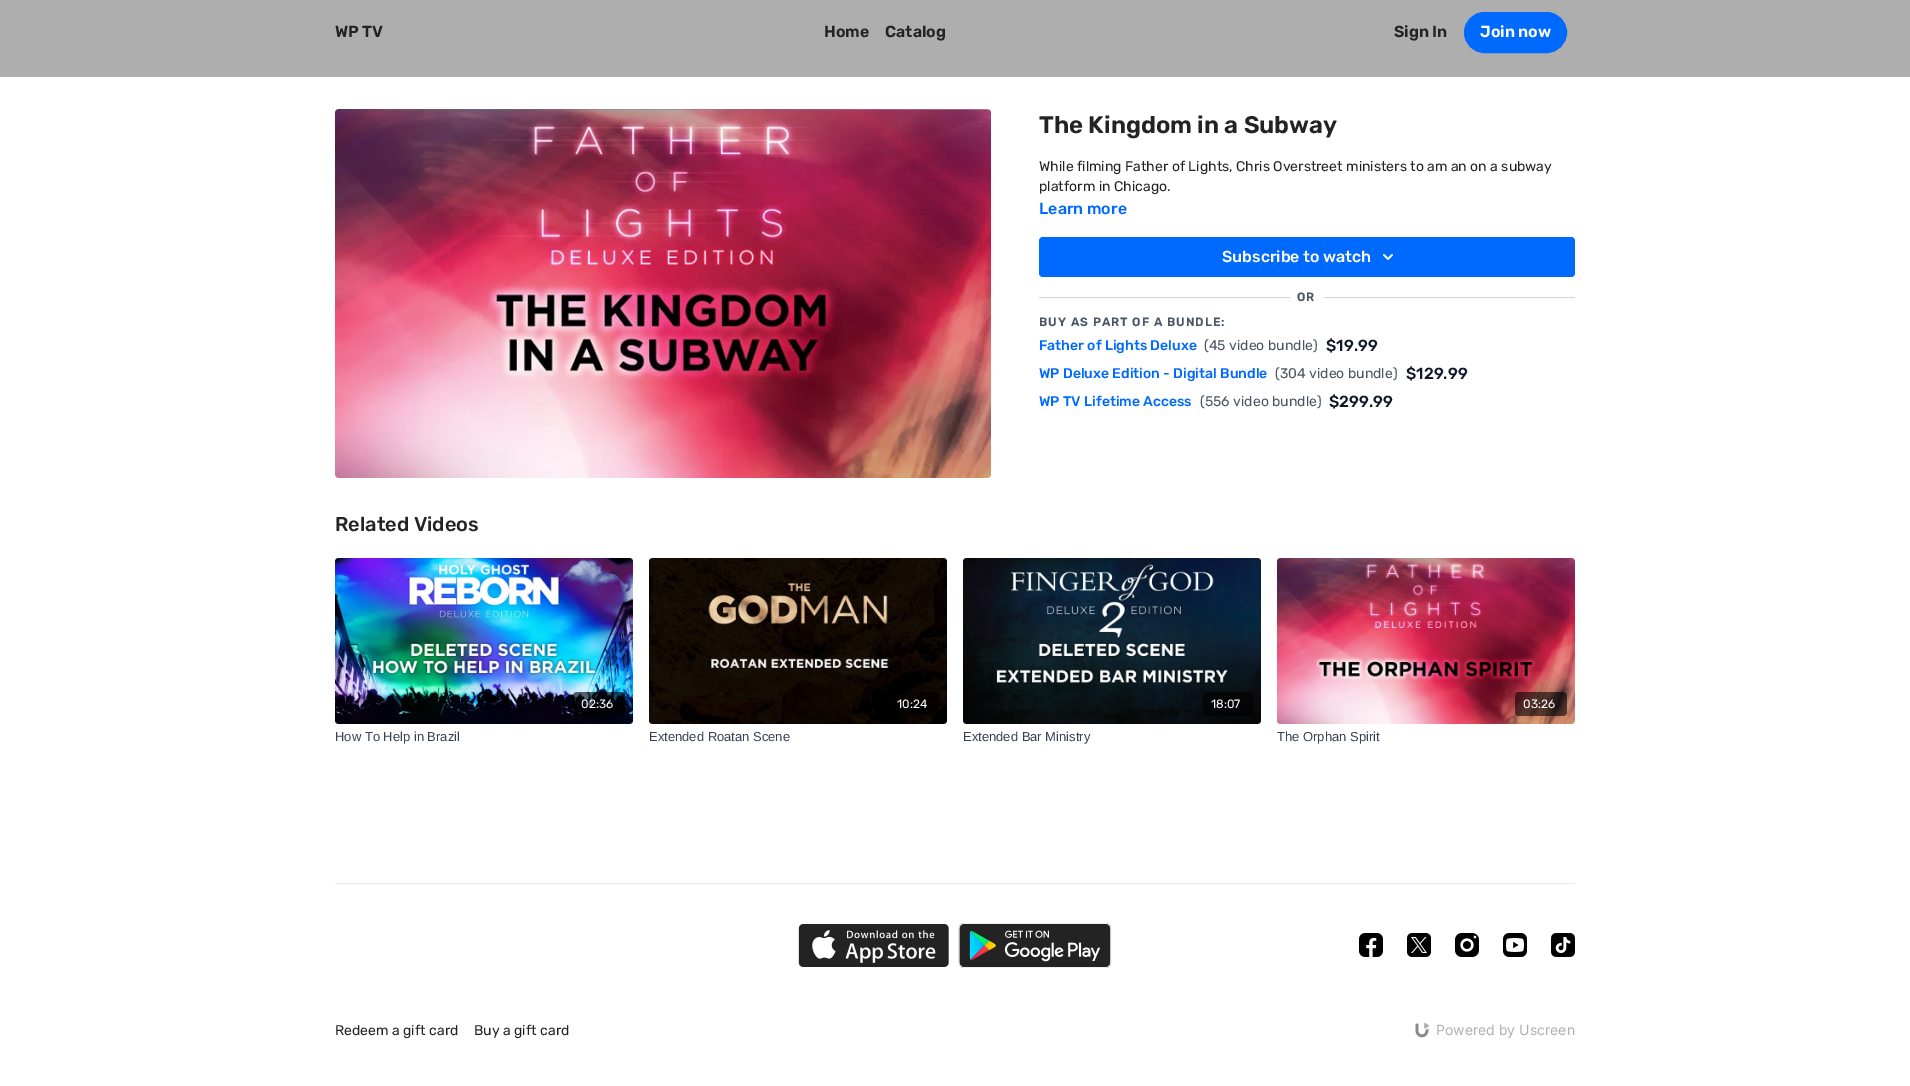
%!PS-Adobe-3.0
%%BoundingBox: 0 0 1910 1086
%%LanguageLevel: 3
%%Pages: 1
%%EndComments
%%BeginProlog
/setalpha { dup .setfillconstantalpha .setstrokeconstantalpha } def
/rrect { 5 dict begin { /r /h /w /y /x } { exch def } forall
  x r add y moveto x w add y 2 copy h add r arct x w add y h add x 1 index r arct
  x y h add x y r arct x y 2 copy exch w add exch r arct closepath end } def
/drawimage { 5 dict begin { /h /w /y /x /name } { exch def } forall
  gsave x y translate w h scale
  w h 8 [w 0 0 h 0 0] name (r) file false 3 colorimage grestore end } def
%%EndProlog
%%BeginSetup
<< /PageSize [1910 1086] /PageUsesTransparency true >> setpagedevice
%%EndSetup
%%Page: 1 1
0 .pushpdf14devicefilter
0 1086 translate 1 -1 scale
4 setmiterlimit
1 setgray
0 0 1910 1086 rectfill
0.682 setgray
0 0 1910 77 rectfill
0 0.416 1 setrgbcolor
1464.5 12.5 102 40 20 rrect gsave fill grestore
stroke
(images/1.raw) 335 109 656 369 drawimage
1039 237 536 40 4 rrect fill
(images/2.raw) 1383 254 10 6 drawimage
0.82 0.835 0.859 setrgbcolor
1039 297 536 1 rectfill
1 setgray
1290 297 34 1 rectfill
(images/3.raw) 335 558 298 166 drawimage
0.6 setalpha
0 setgray
573 692 52 24 4 rrect fill
1 setalpha
(images/4.raw) 649 558 298 166 drawimage
0.6 setalpha
889 692 50 24 4 rrect fill
1 setalpha
(images/5.raw) 963 558 298 166 drawimage
0.6 setalpha
1203 692 50 24 4 rrect fill
1 setalpha
(images/6.raw) 1277 558 298 166 drawimage
0.6 setalpha
1515 692 52 24 4 rrect fill
1 setalpha
0.914 setgray
335 883 1240 1 rectfill
(images/7.raw) 798 924 151 43 drawimage
(images/8.raw) 958 923 154 45 drawimage
(images/9.raw) 1359 933 24 24 drawimage
(images/10.raw) 1407 933 24 24 drawimage
(images/11.raw) 1455 933 24 24 drawimage
(images/12.raw) 1503 933 24 24 drawimage
(images/13.raw) 1551 933 24 24 drawimage
(images/14.raw) 1415 1022 15 16 drawimage
/Rubik-SemiBold [16 0 0 -16 0 0] selectfont
0.137 setgray
335 37 moveto (WP TV) show
824 37 moveto (Home) show
885 37 moveto (Catalog) show
1394 37 moveto (Sign In) show
1 setgray
1480 37 moveto (Join now) show
/Rubik-SemiBold [24 0 0 -24 0 0] selectfont
0.137 setgray
1039 133 moveto (The Kingdom in a Subway) show
/Rubik-Regular [14 0 0 -14 0 0] selectfont
1039 171 moveto (While filming Father of Lights, Chris Overstreet ministers to am an on a subway) show
1039 191 moveto (platform in Chicago.) show
/Rubik-Medium [16 0 0 -16 0 0] selectfont
0 0.416 1 setrgbcolor
1039 214 moveto (Learn more) show
1 setgray
1222 262 moveto (Subscribe to watch) show
/Rubik-SemiBold [12 0 0 -12 0 0] selectfont
0.294 0.333 0.388 setrgbcolor
1297 301 moveto 1 0 (OR) ashow
1039 326 moveto 1 0 (BUY AS PART OF A BUNDLE:) ashow
/Rubik-Medium [14 0 0 -14 0 0] selectfont
0 0.416 1 setrgbcolor
1039 350 moveto (Father of Lights Deluxe) show
/Rubik-Regular [14 0 0 -14 0 0] selectfont
0.294 0.333 0.388 setrgbcolor
1204 350 moveto (\(45 video bundle\)) show
/Rubik-Medium [16 0 0 -16 0 0] selectfont
0.067 0.094 0.153 setrgbcolor
1326 351 moveto ($19.99) show
/Rubik-Medium [14 0 0 -14 0 0] selectfont
0 0.416 1 setrgbcolor
1039 378 moveto (WP Deluxe Edition - Digital Bundle) show
/Rubik-Regular [14 0 0 -14 0 0] selectfont
0.294 0.333 0.388 setrgbcolor
1275 378 moveto (\(304 video bundle\)) show
/Rubik-Medium [16 0 0 -16 0 0] selectfont
0.067 0.094 0.153 setrgbcolor
1406 379 moveto ($129.99) show
/Rubik-Medium [14 0 0 -14 0 0] selectfont
0 0.416 1 setrgbcolor
1039 406 moveto (WP TV Lifetime Access) show
/Rubik-Regular [14 0 0 -14 0 0] selectfont
0.294 0.333 0.388 setrgbcolor
1200 406 moveto (\(556 video bundle\)) show
/Rubik-Medium [16 0 0 -16 0 0] selectfont
0.067 0.094 0.153 setrgbcolor
1329 407 moveto ($299.99) show
/Rubik-Medium [20 0 0 -20 0 0] selectfont
0.137 setgray
335 531 moveto (Related Videos) show
/Rubik-Regular [12 0 0 -12 0 0] selectfont
1 setgray
581 708 moveto (02:36) show
/LiberationSans-Regular [13 0 0 -13 0 0] selectfont
0.216 0.255 0.318 setrgbcolor
335 741 moveto (How To Help in Brazil) show
/Rubik-Regular [12 0 0 -12 0 0] selectfont
1 setgray
897 708 moveto (10:24) show
/LiberationSans-Regular [13 0 0 -13 0 0] selectfont
0.216 0.255 0.318 setrgbcolor
649 741 moveto (Extended Roatan Scene) show
/Rubik-Regular [12 0 0 -12 0 0] selectfont
1 setgray
1211 708 moveto (18:07) show
/LiberationSans-Regular [13 0 0 -13 0 0] selectfont
0.216 0.255 0.318 setrgbcolor
963 741 moveto (Extended Bar Ministry) show
/Rubik-Regular [12 0 0 -12 0 0] selectfont
1 setgray
1523 708 moveto (03:26) show
/LiberationSans-Regular [13 0 0 -13 0 0] selectfont
0.216 0.255 0.318 setrgbcolor
1277 741 moveto (The Orphan Spirit) show
/Rubik-Regular [14 0 0 -14 0 0] selectfont
0.137 setgray
335 1035 moveto (Redeem a gift card) show
474 1035 moveto (Buy a gift card) show
/Inter-Regular [14 0 0 -14 0 0] selectfont
0.69 setgray
1436 1035 moveto (Powered by Uscreen) show
.poppdf14devicefilter showpage
%%EOF
